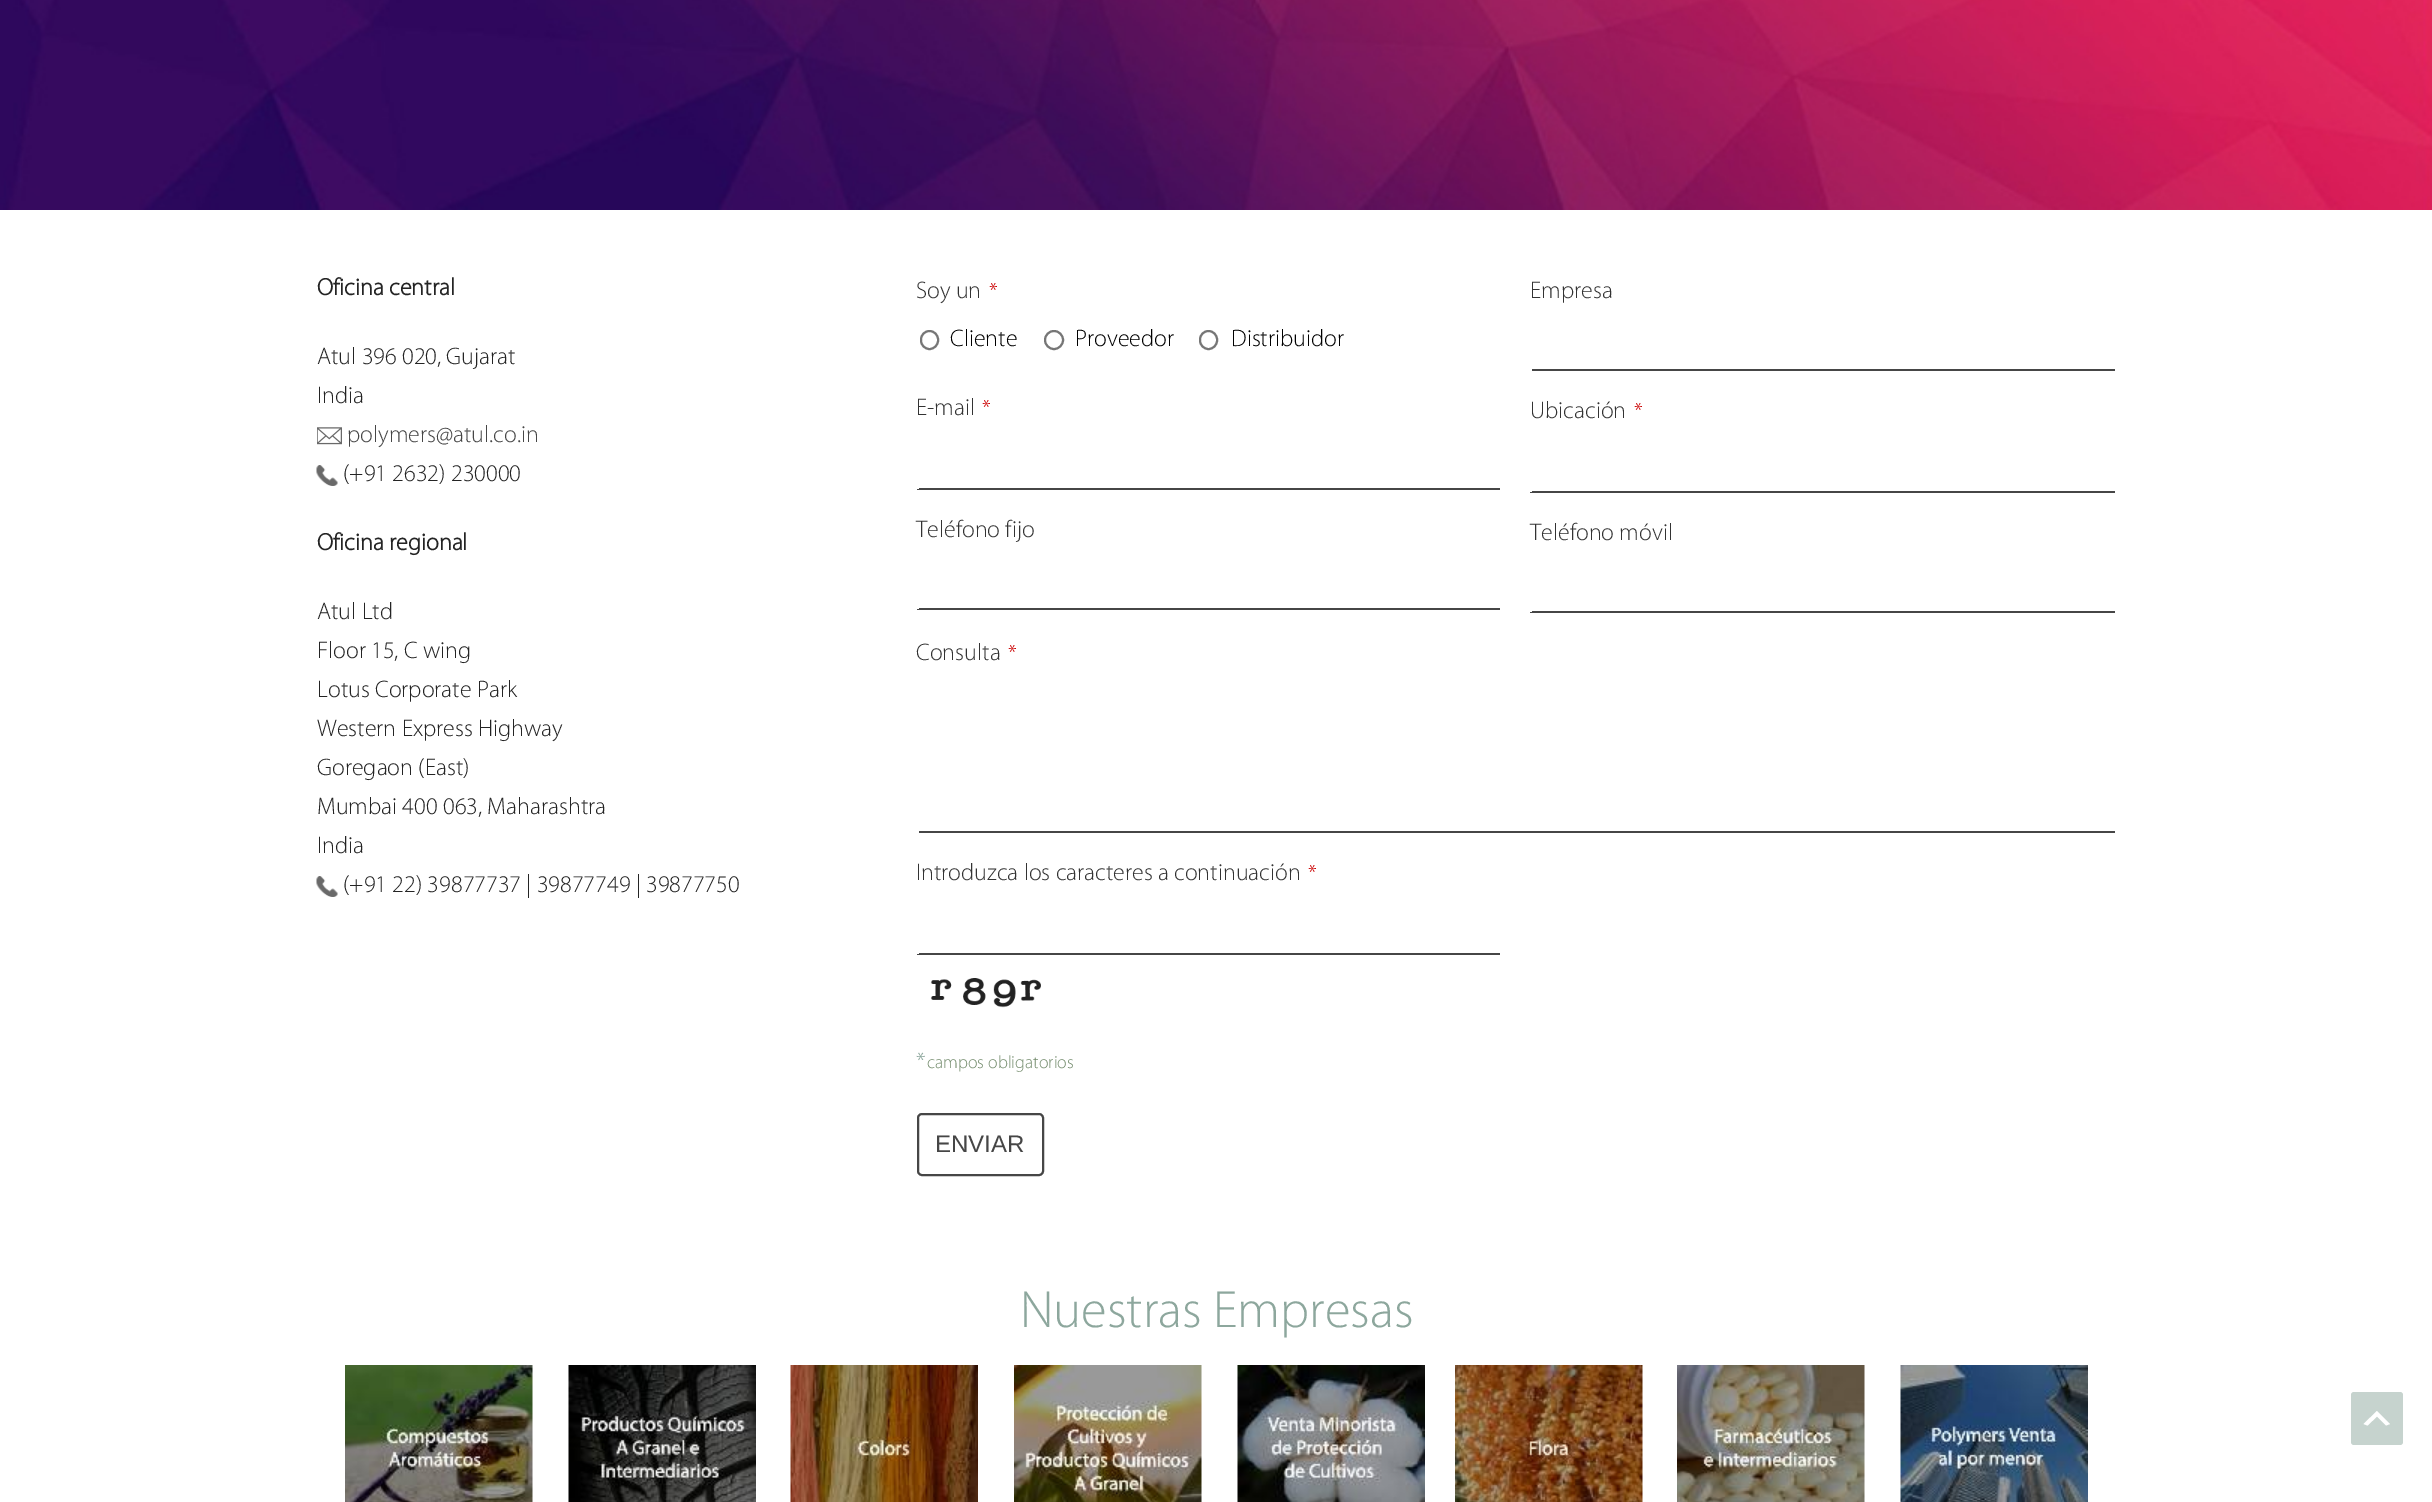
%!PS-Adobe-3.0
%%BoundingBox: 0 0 2432 1502
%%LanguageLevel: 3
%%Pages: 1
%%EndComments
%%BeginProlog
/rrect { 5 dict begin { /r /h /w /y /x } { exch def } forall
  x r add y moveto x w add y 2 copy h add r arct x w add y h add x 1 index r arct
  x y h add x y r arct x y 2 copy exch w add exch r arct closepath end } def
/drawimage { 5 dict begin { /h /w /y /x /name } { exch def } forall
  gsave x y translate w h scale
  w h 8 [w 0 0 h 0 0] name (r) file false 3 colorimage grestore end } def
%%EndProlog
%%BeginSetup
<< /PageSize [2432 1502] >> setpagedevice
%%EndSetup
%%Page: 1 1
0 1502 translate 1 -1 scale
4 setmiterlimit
1 setgray
0 0 2432 1502 rectfill
(images/1.raw) 0 0 2432 210 drawimage
(images/2.raw) 317 427 25 18 drawimage
(images/3.raw) 316 465 22 21 drawimage
(images/4.raw) 316 876 22 21 drawimage
0.463 setgray
2 setlinewidth
921 331 17 18 8.5 rrect stroke
newpath 1054 340 9 0 360 arc closepath stroke
1200 331 17 18 8.5 rrect stroke
0.275 setgray
917 488 583 2 rectfill
1 setgray
917 488 2 1 rectfill
0.275 setgray
917 608 583 2 rectfill
1 setgray
917 608 2 1 rectfill
0.275 setgray
1530 369 585 2 rectfill
1 setgray
1530 369 2 2 rectfill
0.275 setgray
1530 491 585 2 rectfill
1 setgray
1530 491 2 1 rectfill
0.275 setgray
1530 611 585 2 rectfill
1 setgray
1530 611 2 1 rectfill
0.275 setgray
917 831 1198 2 rectfill
1 setgray
917 831 2 2 rectfill
0.275 setgray
917 953 583 2 rectfill
1 setgray
917 953 2 1 rectfill
(images/5.raw) 930 978 111 30 drawimage
0.275 setgray
918 1114 125 61 4 rrect stroke
(images/6.raw) 345 1365 188 137 drawimage
(images/7.raw) 568 1365 188 137 drawimage
(images/8.raw) 790 1365 188 137 drawimage
(images/9.raw) 1014 1365 188 137 drawimage
(images/10.raw) 1237 1365 188 137 drawimage
(images/11.raw) 1455 1365 188 137 drawimage
(images/12.raw) 1677 1365 188 137 drawimage
(images/13.raw) 1900 1365 188 137 drawimage
0.776 0.827 0.808 setrgbcolor
2351 1392 52 53 3 rrect fill
1 setgray
newpath 2386 1425.5 moveto 2377 1416.5 lineto 2367.5 1425.5 lineto 2363.5 1424 lineto 2377 1411 lineto 2390 1424 lineto closepath fill
/Myriad-Bold [24 0 0 -24 0 0] selectfont
0.141 setgray
317 295 moveto (Oficina central) show
/Myriad-Light [24 0 0 -24 0 0] selectfont
317 364 moveto (Atul 396 020, Gujarat) show
317 403 moveto (India) show
0.275 setgray
347 442 moveto (polymers@atul.co.in) show
0.141 setgray
343 481 moveto (\(+91 2632\) 230000) show
/Myriad-Bold [24 0 0 -24 0 0] selectfont
317 550 moveto (Oficina regional) show
/Myriad-Light [24 0 0 -24 0 0] selectfont
317 619 moveto (Atul Ltd) show
317 658 moveto (Floor 15, C wing) show
317 697 moveto (Lotus Corporate Park) show
317 736 moveto (Western Express Highway) show
317 775 moveto (Goregaon \(East\)) show
317 814 moveto (Mumbai 400 063, Maharashtra) show
317 853 moveto (India) show
343 892 moveto (\(+91 22\) 39877737 | 39877749 | 39877750) show
0.2 setgray
916 298 moveto (Soy un) show
/Myriad-Light [22 0 0 -22 0 0] selectfont
0.8 0.004 0.004 setrgbcolor
989 298 moveto (*) show
/Myriad-Light [24 0 0 -24 0 0] selectfont
0 setgray
950 346 moveto (Cliente) show
1075 346 moveto (Proveedor) show
1231 346 moveto (Distribuidor) show
0.2 setgray
916 415 moveto (E-mail) show
/Myriad-Light [22 0 0 -22 0 0] selectfont
0.8 0.004 0.004 setrgbcolor
982 415 moveto (*) show
/Myriad-Light [24 0 0 -24 0 0] selectfont
0.2 setgray
916 537 moveto (Teléfono fijo) show
1530 298 moveto (Empresa) show
1530 418 moveto (Ubicación) show
/Myriad-Light [22 0 0 -22 0 0] selectfont
0.8 0.004 0.004 setrgbcolor
1634 418 moveto (*) show
/Myriad-Light [24 0 0 -24 0 0] selectfont
0.2 setgray
1530 540 moveto (Teléfono móvil) show
916 660 moveto (Consulta) show
/Myriad-Light [22 0 0 -22 0 0] selectfont
0.8 0.004 0.004 setrgbcolor
1008 660 moveto (*) show
/Myriad-Light [24 0 0 -24 0 0] selectfont
0.2 setgray
916 880 moveto (Introduzca los caracteres a continuación) show
/Myriad-Light [22 0 0 -22 0 0] selectfont
0.8 0.004 0.004 setrgbcolor
1308 880 moveto (*) show
/Myriad-Light [24 0 0 -24 0 0] selectfont
0.553 0.655 0.616 setrgbcolor
916 1069 moveto (*) show
/Myriad-Light [18 0 0 -18 0 0] selectfont
0.447 0.545 0.42 setrgbcolor
927 1068 moveto (campos obligatorios) show
/LiberationSans-Regular [24 0 0 -24 0 0] selectfont
0.275 setgray
935 1152 moveto (ENVIAR) show
/Myriad-Light [52.5 0 0 -52.5 0 0] selectfont
0.553 0.655 0.616 setrgbcolor
1020 1327 moveto (Nuestras Empresas) show
showpage
%%EOF
